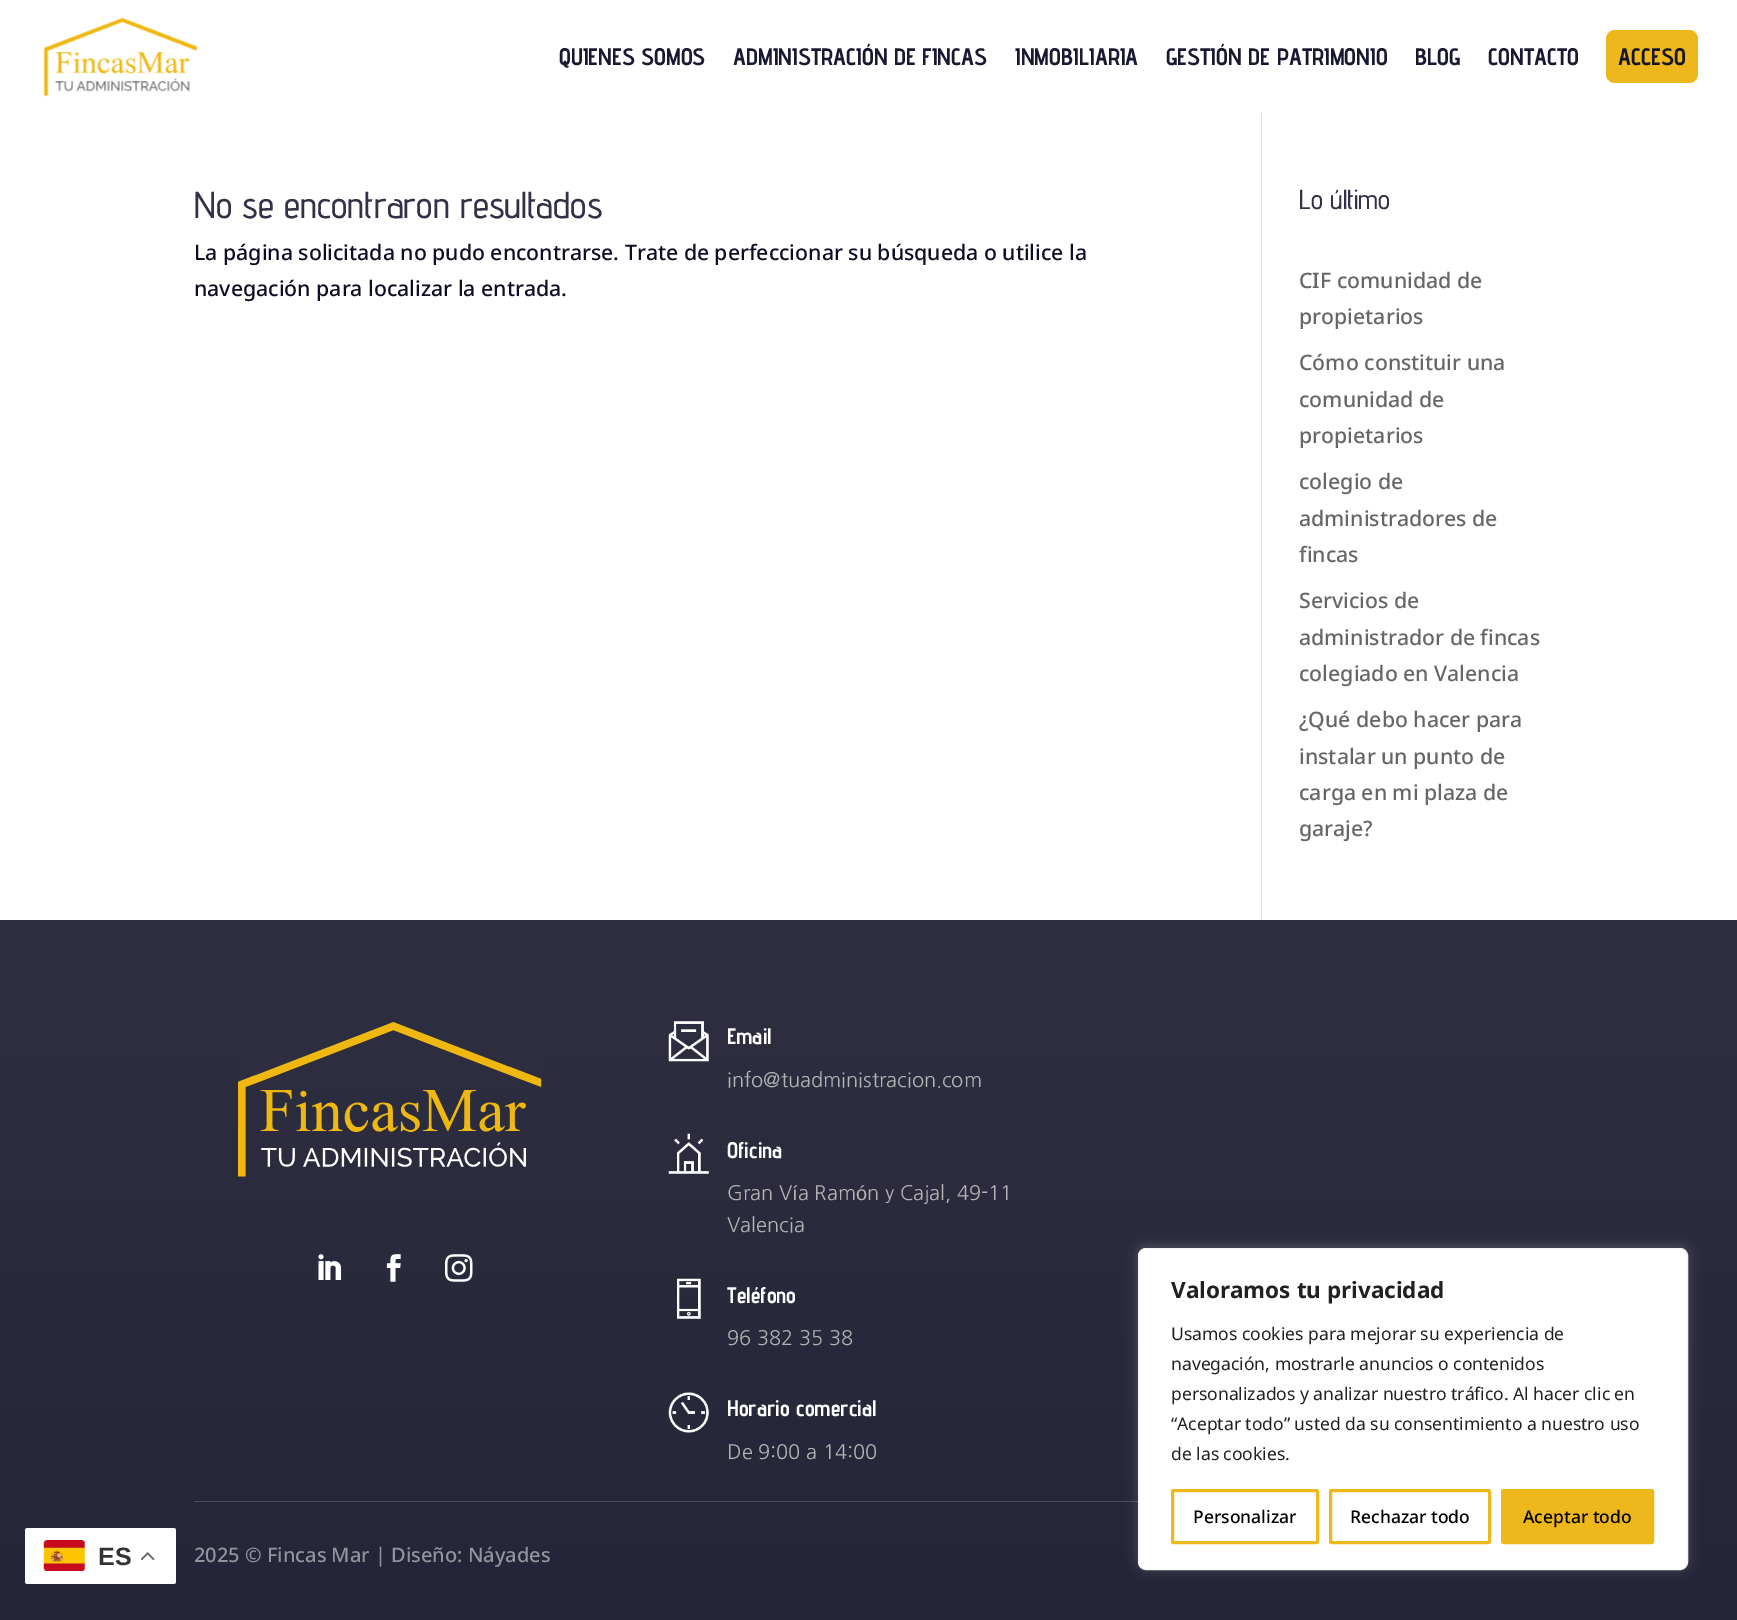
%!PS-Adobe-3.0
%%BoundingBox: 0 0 1737 1620
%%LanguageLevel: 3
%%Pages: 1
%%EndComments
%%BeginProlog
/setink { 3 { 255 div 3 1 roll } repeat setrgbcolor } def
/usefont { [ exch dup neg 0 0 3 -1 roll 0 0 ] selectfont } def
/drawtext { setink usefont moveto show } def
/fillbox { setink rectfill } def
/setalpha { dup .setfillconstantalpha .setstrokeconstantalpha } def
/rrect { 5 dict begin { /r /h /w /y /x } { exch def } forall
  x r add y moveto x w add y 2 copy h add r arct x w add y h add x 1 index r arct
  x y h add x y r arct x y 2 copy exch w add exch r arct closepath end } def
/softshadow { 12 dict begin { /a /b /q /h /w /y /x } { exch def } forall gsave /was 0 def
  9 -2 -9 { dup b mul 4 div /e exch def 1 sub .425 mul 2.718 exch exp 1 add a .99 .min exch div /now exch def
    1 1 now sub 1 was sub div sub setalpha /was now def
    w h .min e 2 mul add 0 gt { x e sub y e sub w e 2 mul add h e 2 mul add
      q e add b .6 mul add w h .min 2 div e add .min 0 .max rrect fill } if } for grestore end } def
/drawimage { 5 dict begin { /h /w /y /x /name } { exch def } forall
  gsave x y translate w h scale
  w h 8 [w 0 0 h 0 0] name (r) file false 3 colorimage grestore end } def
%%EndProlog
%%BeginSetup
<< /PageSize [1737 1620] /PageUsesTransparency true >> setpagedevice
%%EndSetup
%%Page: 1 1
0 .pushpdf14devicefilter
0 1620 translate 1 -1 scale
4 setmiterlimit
0 0 1737 1620 255 255 255 fillbox
(assets/img1.rgb) 43 17 155 80 drawimage
(QUIENES SOMOS) 559 65 /AdventPro-Bold 23.75 25 25 49 drawtext
(ADMINISTRACIÓN DE FINCAS) 733 65 /AdventPro-Bold 23.75 25 25 49 drawtext
(INMOBILIARIA) 1015 65 /AdventPro-Bold 23.75 25 25 49 drawtext
(GESTIÓN DE PATRIMONIO) 1166 65 /AdventPro-Bold 23.75 25 25 49 drawtext
(BLOG) 1415 65 /AdventPro-Bold 23.75 25 25 49 drawtext
(CONTACTO) 1488 65 /AdventPro-Bold 23.75 25 25 49 drawtext
238 184 29 setink
1606 30 92 53 9 rrect fill
(ACCESO) 1618 65 /AdventPro-Bold 23.75 24 22 38 drawtext
1261 113 1 807 226 226 226 fillbox
(No se encontraron resultados) 194 218 /AdventPro-Medium 37.5 49 49 71 drawtext
(La página solicitada no pudo encontrarse. Trate de perfeccionar su búsqueda o utilice la) 194 260 /NotoSans-Medium 21.25 13 13 38 drawtext
(navegación para localizar la entrada.) 194 296 /NotoSans-Medium 21.25 13 13 38 drawtext
(Lo último) 1299 209 /AdventPro-Medium 27.5 49 49 71 drawtext
(CIF comunidad de) 1299 288 /NotoSans-Medium 21.25 102 102 102 drawtext
(propietarios) 1299 324 /NotoSans-Medium 21.25 102 102 102 drawtext
(Cómo constituir una) 1299 370 /NotoSans-Medium 21.25 102 102 102 drawtext
(comunidad de) 1299 407 /NotoSans-Medium 21.25 102 102 102 drawtext
(propietarios) 1299 443 /NotoSans-Medium 21.25 102 102 102 drawtext
(colegio de) 1299 489 /NotoSans-Medium 21.25 102 102 102 drawtext
(administradores de) 1299 526 /NotoSans-Medium 21.25 102 102 102 drawtext
(fincas) 1299 562 /NotoSans-Medium 21.25 102 102 102 drawtext
(Servicios de) 1299 608 /NotoSans-Medium 21.25 102 102 102 drawtext
(administrador de fincas) 1299 645 /NotoSans-Medium 21.25 102 102 102 drawtext
(colegiado en Valencia) 1299 681 /NotoSans-Medium 21.25 102 102 102 drawtext
(¿Qué debo hacer para) 1299 727 /NotoSans-Medium 21.25 102 102 102 drawtext
(instalar un punto de) 1299 764 /NotoSans-Medium 21.25 102 102 102 drawtext
(carga en mi plaza de) 1299 800 /NotoSans-Medium 21.25 102 102 102 drawtext
(garaje?) 1299 836 /NotoSans-Medium 21.25 102 102 102 drawtext
gsave 0 920 moveto 1737 920 lineto 1737 1620 lineto 0 1620 lineto closepath clip newpath
<< /ShadingType 2 /ColorSpace /DeviceRGB /Coords [869 920 869 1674] /Extend [true true] /Function << /FunctionType 2 /Domain [0 1] /C0 [0.184 0.184 0.255] /C1 [0.141 0.141 0.22] /N 1 >> >> shfill grestore
(assets/img2.rgb) 238 1022 304 155 drawimage
(assets/img3.rgb) 318 1254 24 26 drawimage
(assets/img4.rgb) 386 1254 15 28 drawimage
(assets/img5.rgb) 445 1254 28 28 drawimage
(assets/img6.rgb) 668 1021 41 41 drawimage
(Email) 727 1044 /AdventPro-Bold 22.5 255 255 255 drawtext
(info@tuadministracion.com) 727 1087 /NanumGothic-Regular 20 179 179 179 drawtext
(assets/img7.rgb) 668 1133 41 41 drawimage
(Oficina) 727 1158 /AdventPro-Bold 22.5 255 255 255 drawtext
(Gran V a Ram) 727 1200 /NanumGothic-Regular 20 179 179 179 drawtext
(n y Cajal, 49-11) 867 1200 /NanumGothic-Regular 20 179 179 179 drawtext
(í) 792 1200 /LiberationSans-Regular 20 179 179 179 drawtext
(ó) 856 1200 /LiberationSans-Regular 20 179 179 179 drawtext
(Valencia) 727 1232 /NanumGothic-Regular 20 179 179 179 drawtext
(assets/img8.rgb) 677 1278 24 41 drawimage
(Teléfono) 727 1303 /AdventPro-Bold 22.5 255 255 255 drawtext
(96 382 35 38) 727 1345 /NanumGothic-Regular 20 179 179 179 drawtext
(assets/img9.rgb) 668 1392 41 41 drawimage
(Horario comercial) 727 1416 /AdventPro-Bold 22.5 255 255 255 drawtext
(De 9:00 a 14:00) 727 1459 /NanumGothic-Regular 20 179 179 179 drawtext
194 1501 944 1 76 76 91 fillbox
(2025 © Fincas Mar | Diseño: Náyades) 194 1562 /NotoSans-Medium 20 147 147 156 drawtext
172 171 171 setink
1138 1246 550 323 8 6 0.3 softshadow
255 255 255 setink
1138.5 1248.5 549 321 7.5 rrect gsave fill grestore
244 244 244 setink
stroke
(Valoramos tu privacidad) 1171 1298 /NotoSans-Bold 22.5 33 33 33 drawtext
(Usamos cookies para mejorar su experiencia de) 1171 1340 /NotoSans-Regular 17.5 33 33 33 drawtext
(navegación, mostrarle anuncios o contenidos) 1171 1370 /NotoSans-Regular 17.5 33 33 33 drawtext
(personalizados y analizar nuestro tráfico. Al hacer clic en) 1171 1400 /NotoSans-Regular 17.5 33 33 33 drawtext
(“Aceptar todo” usted da su consentimiento a nuestro uso) 1171 1430 /NotoSans-Regular 17.5 33 33 33 drawtext
(de las cookies.) 1171 1460 /NotoSans-Regular 17.5 33 33 33 drawtext
238 184 29 setink
3 setlinewidth
1172.5 1490.5 145 52 1 rrect stroke
(Personalizar) 1193 1523 /NotoSans-Medium 17.5 0 0 0 drawtext
238 184 29 setink
1330.5 1490.5 159 52 1 rrect stroke
(Rechazar todo) 1350 1523 /NotoSans-Medium 17.5 0 0 0 drawtext
238 184 29 setink
1502.5 1490.5 150 52 1 rrect gsave fill grestore
stroke
(Aceptar todo) 1523 1523 /NotoSans-Medium 17.5 0 0 0 drawtext
255 255 255 setink
25 1528 151 56 2.5 rrect fill
(assets/img10.rgb) 43 1540 42 31 drawimage
(ES) 98 1565 /LiberationSans-Bold 25 51 51 51 drawtext
(assets/img11.rgb) 141 1552 14 9 drawimage
.poppdf14devicefilter showpage
%%EOF
